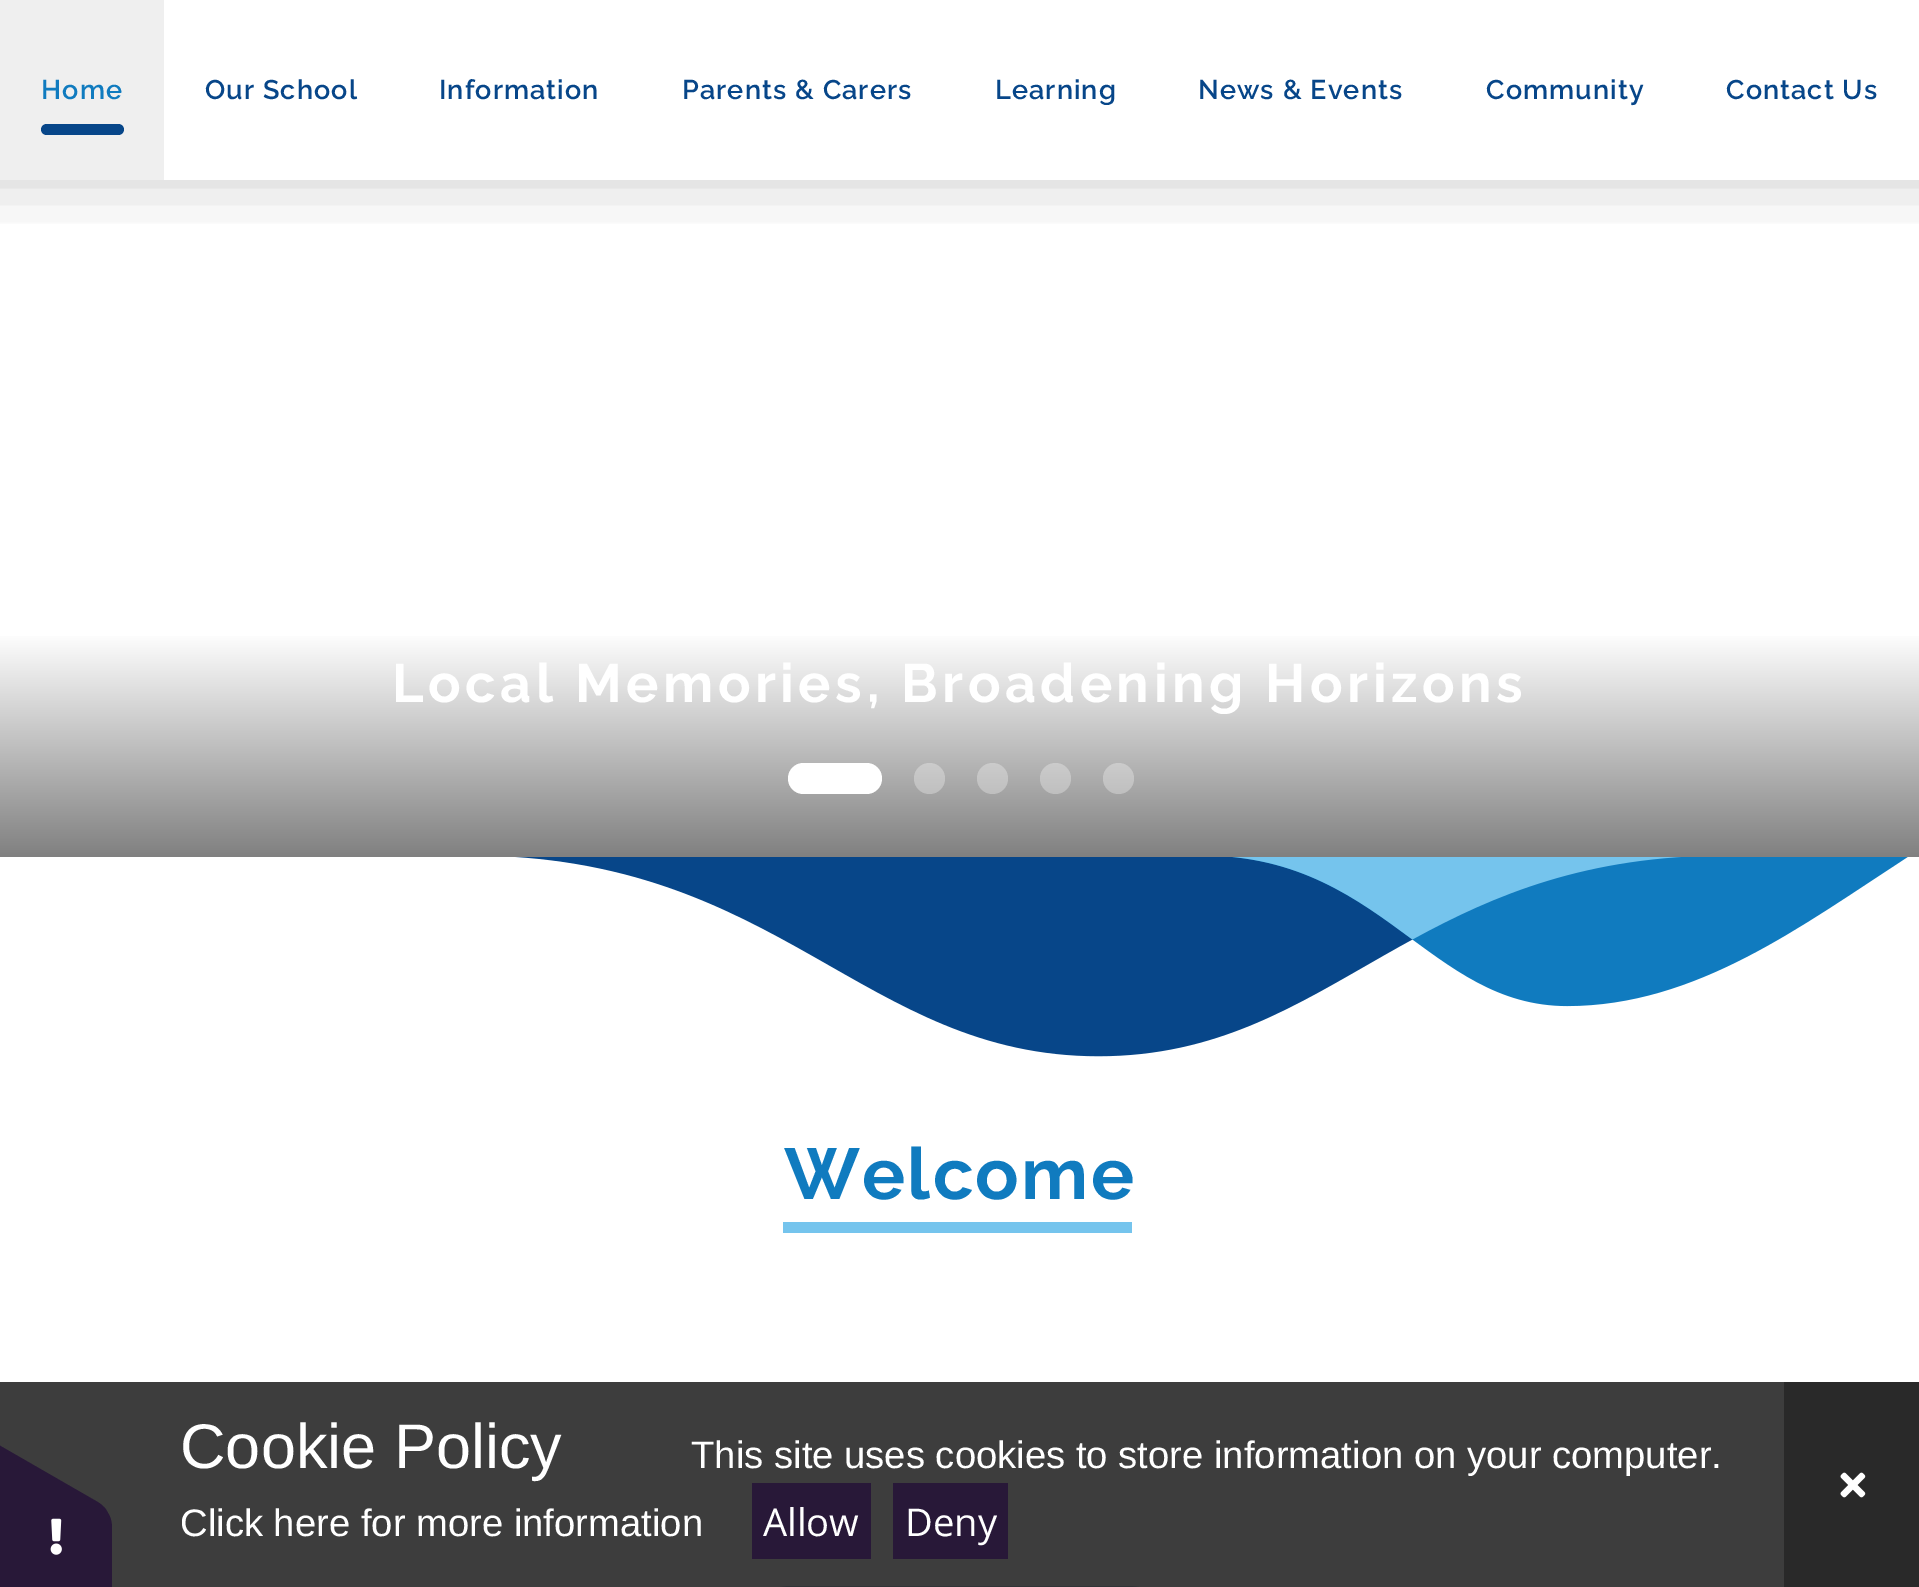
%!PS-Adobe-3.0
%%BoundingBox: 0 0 1919 1587
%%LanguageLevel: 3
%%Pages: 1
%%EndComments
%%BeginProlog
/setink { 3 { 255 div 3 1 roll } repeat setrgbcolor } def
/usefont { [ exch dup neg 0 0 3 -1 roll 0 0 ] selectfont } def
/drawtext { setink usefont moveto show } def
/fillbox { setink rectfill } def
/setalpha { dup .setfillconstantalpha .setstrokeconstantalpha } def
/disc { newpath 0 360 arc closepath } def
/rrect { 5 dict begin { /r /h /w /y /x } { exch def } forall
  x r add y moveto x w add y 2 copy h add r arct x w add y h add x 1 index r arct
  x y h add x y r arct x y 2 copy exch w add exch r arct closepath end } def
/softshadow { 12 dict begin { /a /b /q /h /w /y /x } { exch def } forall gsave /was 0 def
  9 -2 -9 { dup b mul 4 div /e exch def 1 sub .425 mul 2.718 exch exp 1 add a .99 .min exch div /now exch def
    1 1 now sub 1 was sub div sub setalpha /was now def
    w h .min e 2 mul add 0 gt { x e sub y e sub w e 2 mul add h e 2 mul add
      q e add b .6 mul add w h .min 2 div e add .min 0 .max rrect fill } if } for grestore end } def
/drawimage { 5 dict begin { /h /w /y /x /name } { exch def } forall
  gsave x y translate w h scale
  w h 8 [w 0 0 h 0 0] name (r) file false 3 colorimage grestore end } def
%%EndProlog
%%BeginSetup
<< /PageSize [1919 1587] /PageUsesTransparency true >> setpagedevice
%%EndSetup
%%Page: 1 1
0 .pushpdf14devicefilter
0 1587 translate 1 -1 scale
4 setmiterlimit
0 0 1919 1587 255 255 255 fillbox
0 1382 1784 205 61 61 61 fillbox
gsave
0 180 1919 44 rectclip
0 0 0 setink
-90 0 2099 180 68 34 0.2 softshadow
grestore
0 0 164 180 239 239 239 fillbox
/Raleway-SemiBold 27 usefont
16 123 191 setink
41 99 moveto 1.1 0 (Home) ashow
7 70 137 setink
41 124 83 11 5.5 rrect fill
205 99 moveto 1.1 0 (Our School) ashow
439 99 moveto 1.1 0 (Information) ashow
682 99 moveto 1.1 0 (Parents & Carers) ashow
995 99 moveto 1.1 0 (Learning) ashow
1198 99 moveto 1.1 0 (News & Events) ashow
1486 99 moveto 1.1 0 (Community) ashow
1726 99 moveto 1.1 0 (Contact Us) ashow
gsave 0 636 moveto 1919 636 lineto 1919 857 lineto 0 857 lineto closepath clip newpath
<< /ShadingType 2 /ColorSpace /DeviceRGB /Coords [960 632 960 857] /Extend [true true] /Function << /FunctionType 2 /Domain [0 1] /C0 [1 1 1] /C1 [0.502 0.502 0.502] /N 1 >> >> shfill grestore
/Raleway-Bold 54 usefont
255 255 255 setink
392 702 moveto 4.5 0 (Local Memories, Broadening Horizons) ashow
788 763 94 31 15.5 rrect fill
0.3 setalpha
929.5 778.5 15.5 disc fill
992.5 778.5 15.5 disc fill
1055.5 778.5 15.5 disc fill
1118.5 778.5 15.5 disc fill
1 setalpha
(assets/img1.rgb) 515 857 1393 200 drawimage
/Raleway-Bold 72 usefont
16 123 191 setink
784 1199 moveto 2.25 0 (Welcome) ashow
783 1222 349 11 117 196 237 fillbox
49 52 55 setink
729 1586 461 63 62 rrect fill
40 24 56 setink
112 1528 moveto 112 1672 lineto 112 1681 108 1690 103 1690 curveto -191 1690 lineto -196 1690 -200 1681 -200 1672 curveto -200 1528 lineto -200 1518 -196 1510 -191 1510 curveto 103 1510 lineto 108 1510 112 1518 112 1528 curveto closepath fill
-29 1429 moveto 96 1501 lineto 105 1506 110 1513 107 1517 curveto -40 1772 lineto -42 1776 -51 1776 -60 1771 curveto -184 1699 lineto -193 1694 -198 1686 -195 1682 curveto -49 1427 lineto -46 1423 -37 1424 -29 1429 curveto closepath fill
(assets/img2.rgb) 50 1518 12 37 drawimage
(Cookie Policy) 180 1468 /LiberationSans-Regular 63 255 255 255 drawtext
(This site uses cookies to store information on your computer.) 691 1468 /LiberationSans-Regular 38.25 255 255 255 drawtext
(Click here for more information) 180 1536 /LiberationSans-Regular 38.25 255 255 255 drawtext
752 1483 119 76 40 24 56 fillbox
(Allow) 763 1536 /OpenSans-Regular 38.25 255 255 255 drawtext
893 1483 115 76 40 24 56 fillbox
(Deny) 905 1536 /OpenSans-Regular 38.25 255 255 255 drawtext
1784 1382 135 205 41 41 41 fillbox
(assets/img3.rgb) 1840 1472 26 26 drawimage
.poppdf14devicefilter showpage
%%EOF
